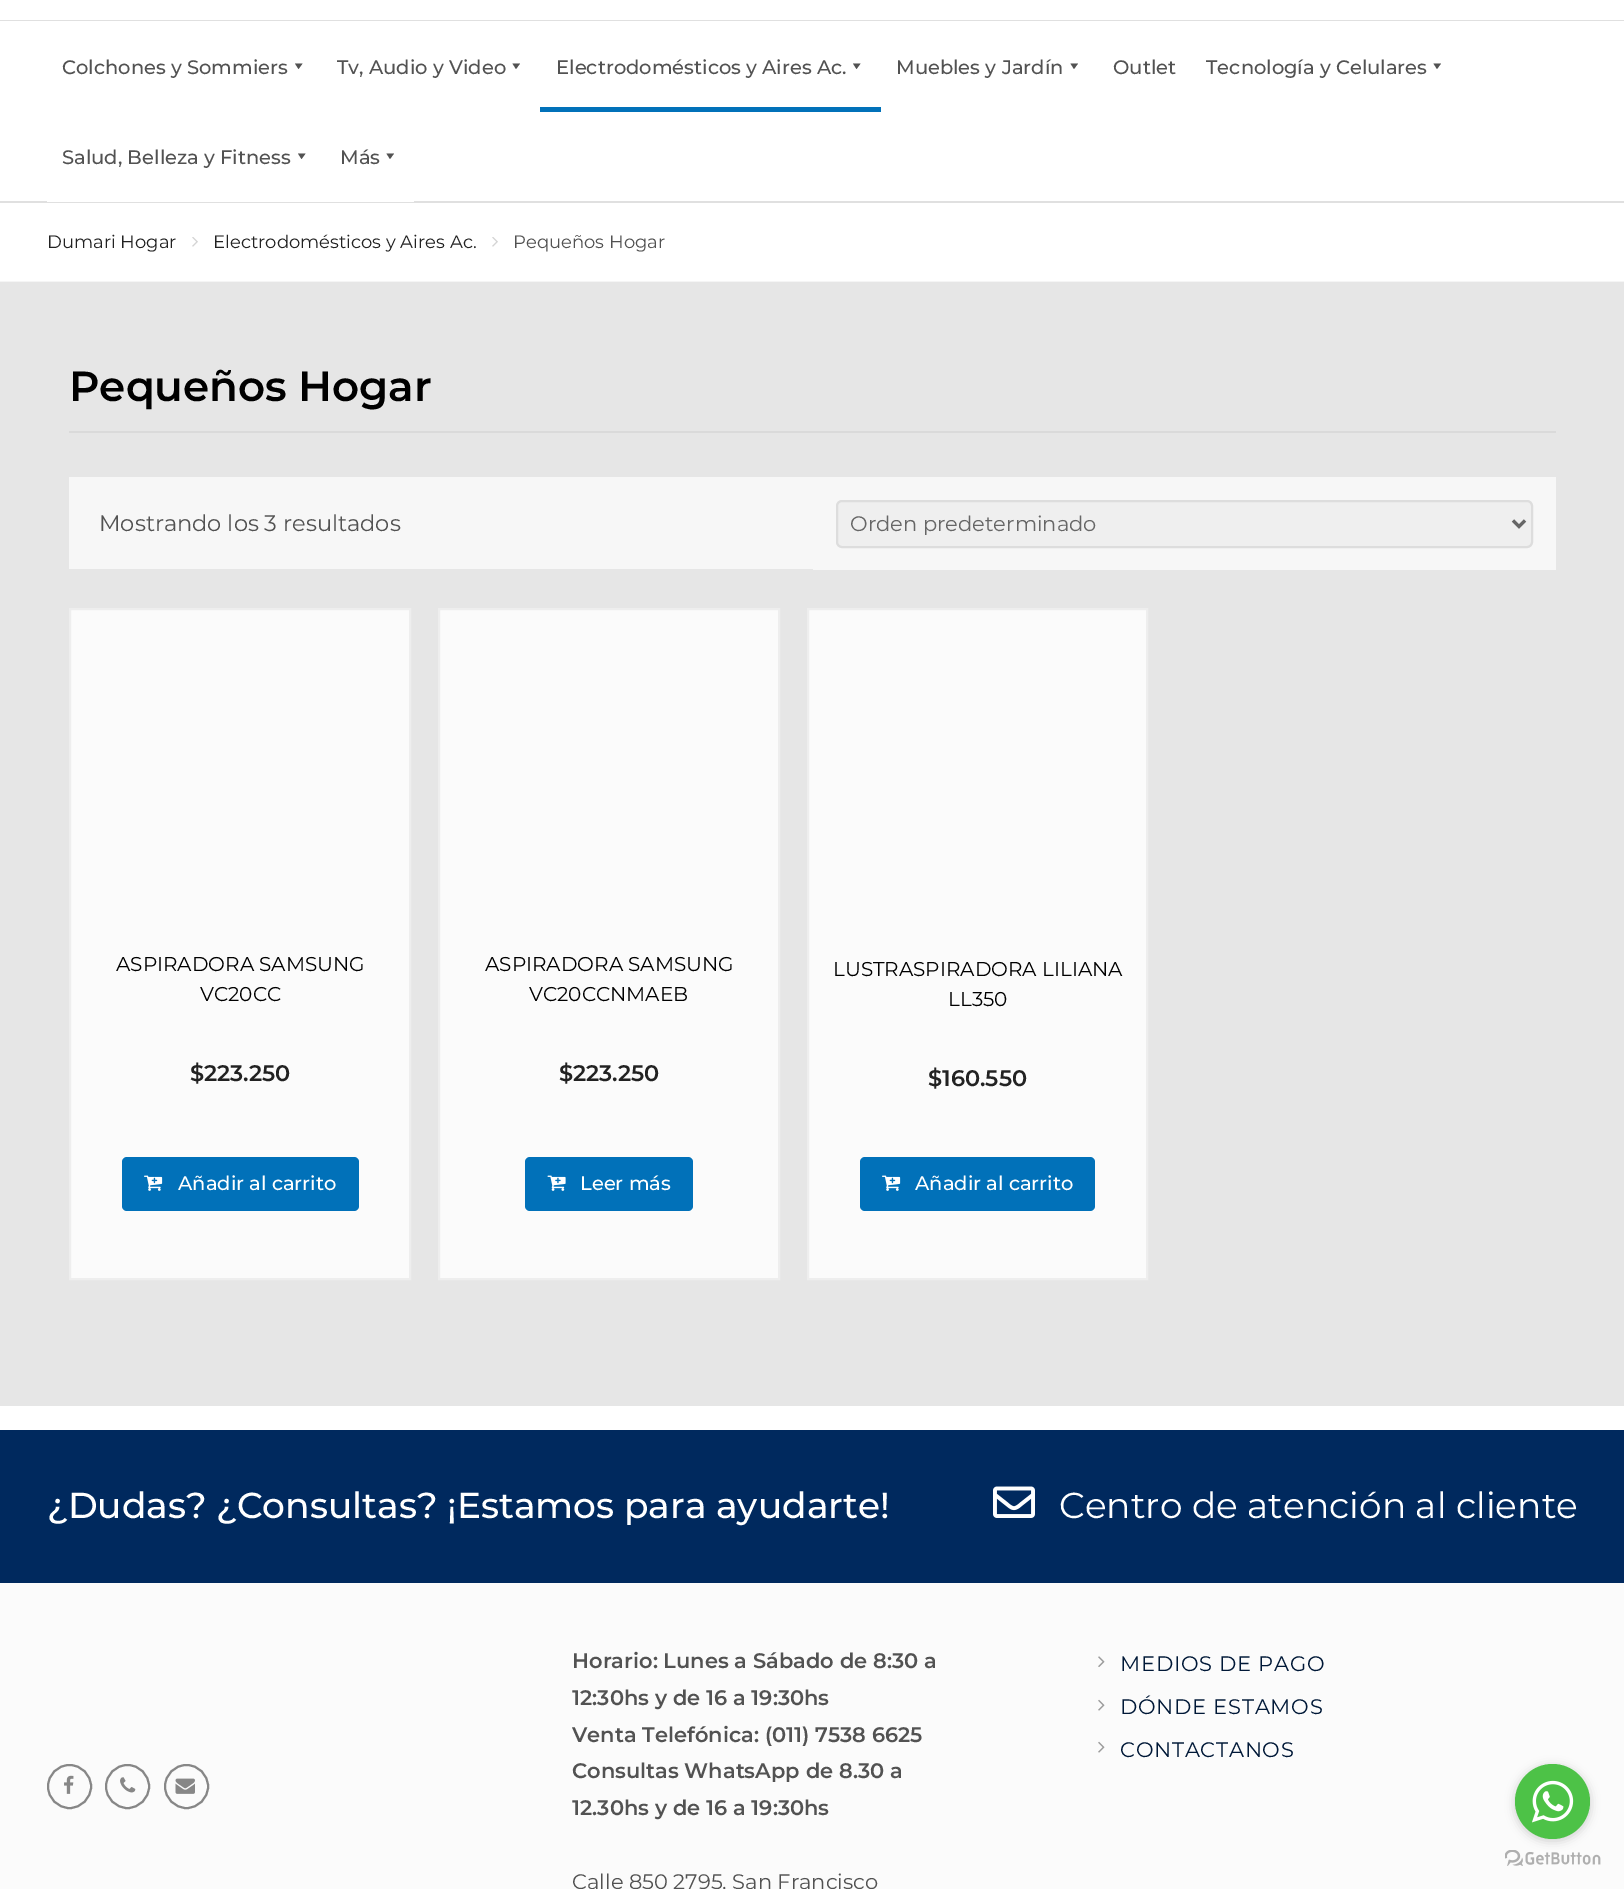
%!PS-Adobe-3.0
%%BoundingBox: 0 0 1624 1889
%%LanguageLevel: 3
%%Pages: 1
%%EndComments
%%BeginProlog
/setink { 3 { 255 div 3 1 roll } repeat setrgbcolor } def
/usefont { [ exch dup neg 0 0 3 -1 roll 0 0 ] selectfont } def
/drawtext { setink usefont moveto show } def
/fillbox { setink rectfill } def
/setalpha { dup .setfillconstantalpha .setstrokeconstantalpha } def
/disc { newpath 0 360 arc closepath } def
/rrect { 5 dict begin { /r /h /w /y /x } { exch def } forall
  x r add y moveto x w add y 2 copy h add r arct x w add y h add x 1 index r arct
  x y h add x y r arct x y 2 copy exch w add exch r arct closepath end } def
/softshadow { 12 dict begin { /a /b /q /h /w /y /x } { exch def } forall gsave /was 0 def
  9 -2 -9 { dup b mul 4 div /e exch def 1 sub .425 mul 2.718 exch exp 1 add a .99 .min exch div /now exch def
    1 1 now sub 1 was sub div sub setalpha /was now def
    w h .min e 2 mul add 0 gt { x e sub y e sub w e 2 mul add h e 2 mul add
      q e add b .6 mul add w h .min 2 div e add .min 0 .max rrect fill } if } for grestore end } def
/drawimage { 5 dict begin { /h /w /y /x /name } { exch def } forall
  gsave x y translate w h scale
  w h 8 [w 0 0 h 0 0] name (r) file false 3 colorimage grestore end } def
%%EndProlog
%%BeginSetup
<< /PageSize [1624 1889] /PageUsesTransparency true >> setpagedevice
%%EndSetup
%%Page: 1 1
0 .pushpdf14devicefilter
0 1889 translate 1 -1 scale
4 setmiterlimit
0 0 1624 1889 255 255 255 fillbox
0 20 1624 1 224 224 224 fillbox
0 201 1624 2 224 224 224 fillbox
(Colchones y Sommiers) 62 74 /Montserrat-Medium 19.5 82 82 82 drawtext
302.5 63.5 moveto 298.5 69 lineto 295 63.5 lineto closepath fill
(Tv, Audio y Video) 337 74 /Montserrat-Medium 19.5 82 82 82 drawtext
520 63.5 moveto 516 69 lineto 512.5 63.5 lineto closepath fill
540 107 341 5 1 113 185 fillbox
(Electrodomésticos y Aires Ac.) 556 74 /Montserrat-Medium 19.5 82 82 82 drawtext
860.5 63.5 moveto 856.5 69 lineto 853 63.5 lineto closepath fill
(Muebles y Jardín) 896 74 /Montserrat-Medium 19.5 82 82 82 drawtext
1078 63.5 moveto 1074 69 lineto 1070.5 63.5 lineto closepath fill
(Outlet) 1113 74 /Montserrat-Medium 19.5 82 82 82 drawtext
(Tecnología y Celulares) 1206 74 /Montserrat-Medium 19.5 82 82 82 drawtext
1441 63.5 moveto 1437 69 lineto 1433.5 63.5 lineto closepath fill
47 201 367 1 255 255 255 fillbox
(Salud, Belleza y Fitness) 62 164 /Montserrat-Medium 19.5 82 82 82 drawtext
305.5 153.5 moveto 301.5 159 lineto 298 153.5 lineto closepath fill
(Más) 340 164 /Montserrat-Medium 19.5 82 82 82 drawtext
394 153.5 moveto 390 159 lineto 386.5 153.5 lineto closepath fill
0 281 1624 1 245 245 245 fillbox
(Dumari Hogar) 47 248 /Montserrat-Regular 18 34 34 34 drawtext
(assets/img1.rgb) 192 237 6 10 drawimage
(Electrodomésticos y Aires Ac.) 213 248 /Montserrat-Regular 18 34 34 34 drawtext
(assets/img1.rgb) 492 237 6 10 drawimage
(Pequeños Hogar) 513 248 /Montserrat-Regular 18 82 82 82 drawtext
0 282 1624 1124 230 230 230 fillbox
69 431 1487 2 218 218 218 fillbox
(Pequeños Hogar) 69 401 /Montserrat-SemiBold 42 0 0 0 drawtext
69 477 744 92 247 247 247 fillbox
(Mostrando los 3 resultados) 99 531 /Montserrat-Regular 22.5 82 82 82 drawtext
813 477 743 93 247 247 247 fillbox
239 239 239 setink
837 501 695 46 5 rrect gsave fill grestore
221 221 221 setink
2 setlinewidth
stroke
102 102 102 setink
3 setlinewidth
1513 520.5 moveto 1519 526.5 lineto 1525 520.5 lineto stroke
(Orden predeterminado) 850 531 /Montserrat-Regular 21 102 102 102 drawtext
251 251 251 setink
70 609 moveto 410 609 lineto 410 1279 lineto 70 1279 lineto closepath gsave fill grestore
238 238 238 setink
2 setlinewidth
stroke
(ASPIRADORA SAMSUNG) 116 971 /Montserrat-Regular 20 0 0 0 drawtext
(VC20CC) 200 1001 /Montserrat-Regular 20 0 0 0 drawtext
($223.250) 190 1081 /Montserrat-SemiBold 22.5 34 34 34 drawtext
1 113 185 setink
122 1157 237 54 5 rrect fill
(assets/img2.rgb) 144 1175 19 16 drawimage
(Añadir al carrito) 178 1190 /Montserrat-Medium 19.5 255 255 255 drawtext
251 251 251 setink
439 609 moveto 779 609 lineto 779 1279 lineto 439 1279 lineto closepath gsave fill grestore
238 238 238 setink
stroke
(ASPIRADORA SAMSUNG) 485 971 /Montserrat-Regular 20 0 0 0 drawtext
(VC20CCNMAEB) 529 1001 /Montserrat-Regular 20 0 0 0 drawtext
($223.250) 559 1081 /Montserrat-SemiBold 22.5 34 34 34 drawtext
1 113 185 setink
525 1157 168 54 5 rrect fill
(assets/img3.rgb) 547 1175 19 16 drawimage
(Leer más) 580 1190 /Montserrat-Medium 19.5 255 255 255 drawtext
251 251 251 setink
808 609 moveto 1147 609 lineto 1147 1279 lineto 808 1279 lineto closepath gsave fill grestore
238 238 238 setink
stroke
(LUSTRASPIRADORA LILIANA) 833 976 /Montserrat-Regular 20 0 0 0 drawtext
(LL350) 948 1006 /Montserrat-Regular 20 0 0 0 drawtext
($160.550) 928 1086 /Montserrat-SemiBold 22.5 34 34 34 drawtext
1 113 185 setink
860 1157 235 54 5 rrect fill
(assets/img2.rgb) 882 1175 19 16 drawimage
(Añadir al carrito) 915 1190 /Montserrat-Medium 19.5 255 255 255 drawtext
0 1430 1624 153 0 41 94 fillbox
(¿Dudas? ¿Consultas? ¡Estamos para ayudarte!) 47 1518 /Montserrat-Medium 36 255 255 255 drawtext
(assets/img4.rgb) 993 1486 42 32 drawimage
(Centro de atención al cliente) 1059 1518 /Montserrat-Regular 36 255 255 255 drawtext
0 1583 1624 306 251 251 251 fillbox
(Horario: Lunes a Sábado de 8:30 a) 572 1668 /Montserrat-SemiBold 21 82 82 82 drawtext
(12:30hs y de 16 a 19:30hs) 572 1705 /Montserrat-SemiBold 21 82 82 82 drawtext
(Venta Telefónica: \(011\) 7538 6625) 572 1742 /Montserrat-SemiBold 21 82 82 82 drawtext
(Consultas WhatsApp de 8.30 a) 572 1778 /Montserrat-SemiBold 21 82 82 82 drawtext
(12.30hs y de 16 a 19:30hs) 572 1815 /Montserrat-SemiBold 21 82 82 82 drawtext
(Calle 850 2795, San Francisco) 572 1889 /Montserrat-Regular 21 82 82 82 drawtext
(assets/img5.rgb) 1098 1656 7 11 drawimage
0 24 55 setink
1120 1671 moveto 0.75 0 (MEDIOS DE PAGO) ashow
(assets/img6.rgb) 1098 1699 7 12 drawimage
1120 1714 moveto 0.75 0 (DÓNDE ESTAMOS) ashow
(assets/img6.rgb) 1098 1741 7 12 drawimage
1120 1757 moveto 0.75 0 (CONTACTANOS) ashow
135 135 135 setink
69.5 1786.5 21.5 disc stroke
(assets/img7.rgb) 64 1775 10 19 drawimage
127.5 1786.5 21.5 disc stroke
(assets/img8.rgb) 120 1777 16 16 drawimage
186.5 1786.5 21.5 disc stroke
(assets/img9.rgb) 175 1778 20 16 drawimage
(assets/img11.rgb) 1505 1850 96 16 drawimage
136 136 136 setink
1515 1766 75 75 37.5 5 0.4 softshadow
77 194 71 setink
1552.5 1801.5 37.5 disc fill
(assets/img10.rgb) 1532 1780 42 43 drawimage
.poppdf14devicefilter showpage
%%EOF
